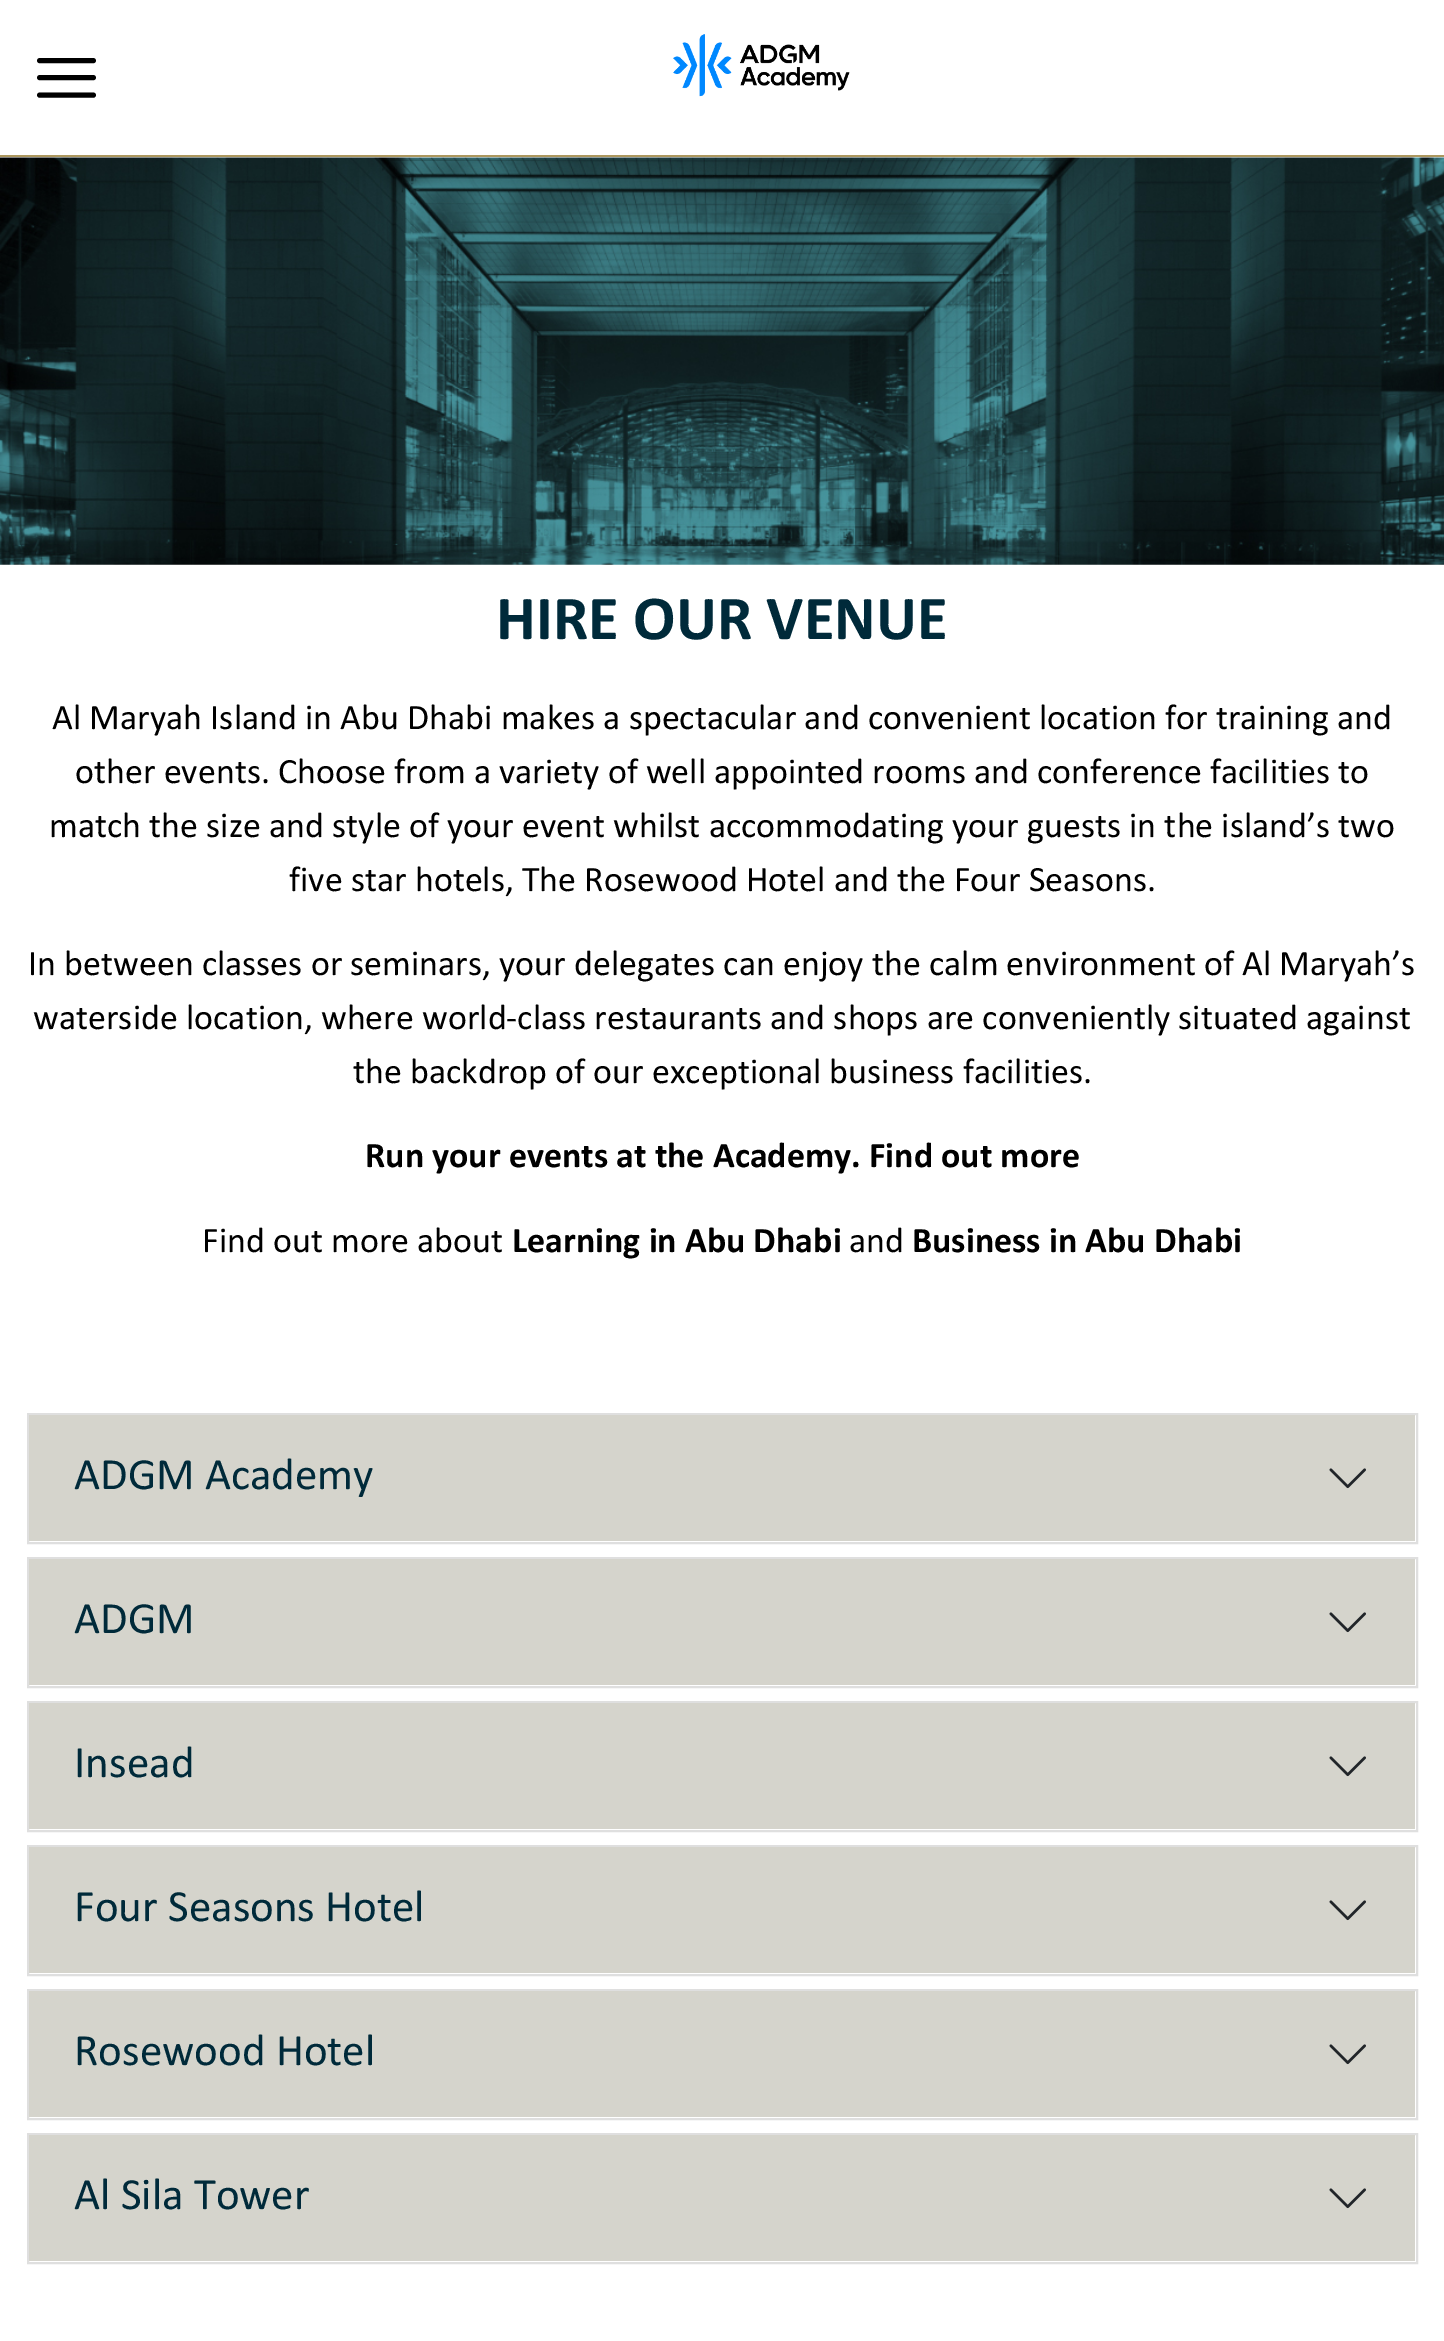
%!PS-Adobe-3.0
%%BoundingBox: 0 0 1444 2341
%%LanguageLevel: 3
%%Pages: 1
%%EndComments
%%BeginProlog
/setink { 3 { 255 div 3 1 roll } repeat setrgbcolor } def
/usefont { [ exch dup neg 0 0 3 -1 roll 0 0 ] selectfont } def
/drawtext { setink usefont moveto show } def
/fillbox { setink rectfill } def
/drawimage { 5 dict begin { /h /w /y /x /name } { exch def } forall
  gsave x y translate w h scale
  w h 8 [w 0 0 h 0 0] name (r) file false 3 colorimage grestore end } def
%%EndProlog
%%BeginSetup
<< /PageSize [1444 2341] >> setpagedevice
%%EndSetup
%%Page: 1 1
0 2341 translate 1 -1 scale
4 setmiterlimit
0 0 1444 2341 255 255 255 fillbox
0 155 1444 2 172 151 94 fillbox
0 0 0 setink
4.9 setlinewidth
1 setlinecap
1 setlinejoin
39.5 60.5 moveto 93.5 60.5 lineto 39.5 77.5 moveto 93.5 77.5 lineto 39.5 95 moveto 93.5 95 lineto stroke
(assets/img1.rgb) 673 34 177 63 drawimage
(assets/img2.rgb) 0 157 1444 408 drawimage
(HIRE OUR VENUE) 496 639 /Calibri-Bold 63 0 42 58 drawtext
(Al Maryah Island in Abu Dhabi makes a spectacular and convenient location for training and) 52 729 /Calibri-Regular 36 0 0 0 drawtext
(other events. Choose from a variety of well appointed rooms and conference facilities to) 75 783 /Calibri-Regular 36 0 0 0 drawtext
(match the size and style of your event whilst accommodating your guests in the island’s two) 49 837 /Calibri-Regular 36 0 0 0 drawtext
(five star hotels, The Rosewood Hotel and the Four Seasons.) 289 891 /Calibri-Regular 36 0 0 0 drawtext
(In between classes or seminars, your delegates can enjoy the calm environment of Al Maryah’s) 28 975 /Calibri-Regular 36 0 0 0 drawtext
(waterside location, where world-class restaurants and shops are conveniently situated against) 33 1029 /Calibri-Regular 36 0 0 0 drawtext
(the backdrop of our exceptional business facilities.) 353 1083 /Calibri-Regular 36 0 0 0 drawtext
(Run your events at the Academy. Find out more) 365 1167 /Calibri-Bold 36 0 0 0 drawtext
(Find out more about) 202 1252 /Calibri-Regular 36 0 0 0 drawtext
(Learning in Abu Dhabi) 512 1252 /Calibri-Bold 36 0 0 0 drawtext
(and) 849 1252 /Calibri-Regular 36 0 0 0 drawtext
(Business in Abu Dhabi) 912 1252 /Calibri-Bold 36 0 0 0 drawtext
223 223 223 setink
2 setlinewidth
0 setlinecap
0 setlinejoin
28 1414 1389 129 rectstroke
29 1415 1386 126 213 212 204 fillbox
(ADGM Academy) 74 1489 /Calibri-Regular 45 0 42 58 drawtext
(assets/img3.rgb) 1329 1468 37 21 drawimage
223 223 223 setink
28 1558 1389 129 rectstroke
29 1559 1386 126 213 212 204 fillbox
(ADGM) 74 1633 /Calibri-Regular 45 0 42 58 drawtext
(assets/img3.rgb) 1329 1612 37 21 drawimage
223 223 223 setink
28 1702 1389 129 rectstroke
29 1703 1386 126 213 212 204 fillbox
(Insead) 74 1777 /Calibri-Regular 45 0 42 58 drawtext
(assets/img3.rgb) 1329 1756 37 21 drawimage
223 223 223 setink
28 1846 1389 129 rectstroke
29 1847 1386 126 213 212 204 fillbox
(Four Seasons Hotel) 74 1921 /Calibri-Regular 45 0 42 58 drawtext
(assets/img3.rgb) 1329 1900 37 21 drawimage
223 223 223 setink
28 1990 1389 129 rectstroke
29 1991 1386 126 213 212 204 fillbox
(Rosewood Hotel) 74 2065 /Calibri-Regular 45 0 42 58 drawtext
(assets/img3.rgb) 1329 2044 37 21 drawimage
223 223 223 setink
28 2134 1389 129 rectstroke
29 2135 1386 126 213 212 204 fillbox
(Al Sila Tower) 74 2209 /Calibri-Regular 45 0 42 58 drawtext
(assets/img3.rgb) 1329 2188 37 21 drawimage
showpage
%%EOF
